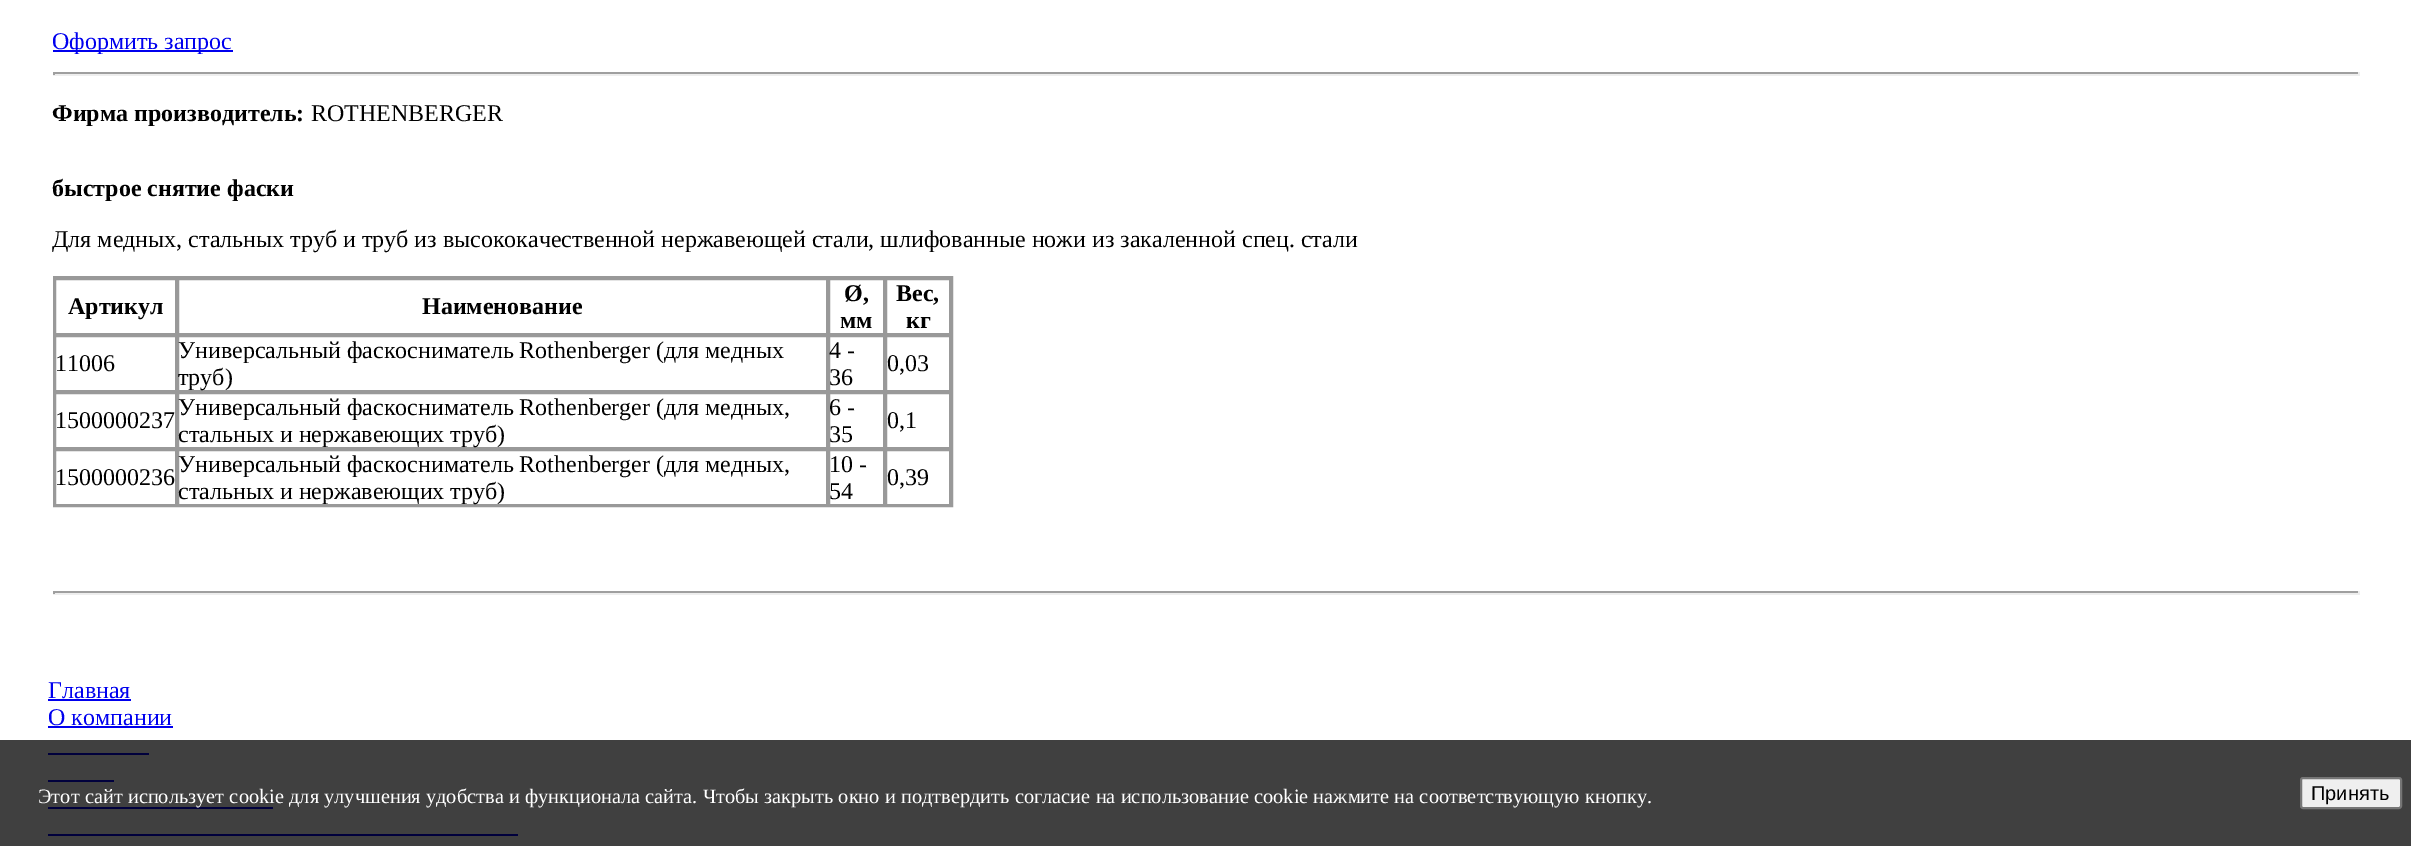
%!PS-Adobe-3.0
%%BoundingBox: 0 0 2411 846
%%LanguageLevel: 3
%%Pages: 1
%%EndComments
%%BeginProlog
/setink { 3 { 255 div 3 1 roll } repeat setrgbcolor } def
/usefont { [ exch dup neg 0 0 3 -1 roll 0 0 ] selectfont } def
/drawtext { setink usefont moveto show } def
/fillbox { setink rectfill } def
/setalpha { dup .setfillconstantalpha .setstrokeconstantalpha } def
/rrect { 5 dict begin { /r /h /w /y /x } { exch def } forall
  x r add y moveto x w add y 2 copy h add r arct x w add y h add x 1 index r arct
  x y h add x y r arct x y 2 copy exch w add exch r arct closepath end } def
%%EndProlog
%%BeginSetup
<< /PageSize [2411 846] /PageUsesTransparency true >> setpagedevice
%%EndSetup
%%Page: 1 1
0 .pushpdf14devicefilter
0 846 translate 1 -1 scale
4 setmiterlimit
0 0 2411 846 255 255 255 fillbox
53 50 180 2 0 0 238 fillbox
(Оформить запрос) 52 49 /LiberationSerif-Regular 24 0 0 238 drawtext
53 72 2307 2 159 159 159 fillbox
2358 72 2 3 238 238 238 fillbox
53 74 2307 2 238 238 238 fillbox
53 72 2 3 159 159 159 fillbox
(Фирма производитель:) 52 121 /LiberationSerif-Bold 24 0 0 0 drawtext
(ROTHENBERGER) 311 121 /LiberationSerif-Regular 24 0 0 0 drawtext
(быстрое снятие фаски) 52 196 /LiberationSerif-Bold 24 0 0 0 drawtext
(Для медных, стальных труб и труб из высококачественной нержавеющей стали, шлифованные ножи из закаленной спец. стали) 52 247 /LiberationSerif-Regular 24 0 0 0 drawtext
153 153 153 setink
2 setlinewidth
54 277 898 229 rectstroke
55 279 121 55 rectstroke
(Артикул) 68 314 /LiberationSerif-Bold 24 0 0 0 drawtext
153 153 153 setink
178 279 649 55 rectstroke
(Наименование) 422 314 /LiberationSerif-Bold 24 0 0 0 drawtext
153 153 153 setink
829 279 55 55 rectstroke
(Ø,) 844 301 /LiberationSerif-Bold 24 0 0 0 drawtext
(мм) 840 328 /LiberationSerif-Bold 24 0 0 0 drawtext
153 153 153 setink
886 279 64 55 rectstroke
(Вес,) 896 301 /LiberationSerif-Bold 24 0 0 0 drawtext
(кг) 906 328 /LiberationSerif-Bold 24 0 0 0 drawtext
153 153 153 setink
55 336 121 55 rectstroke
(11006) 55 371 /LiberationSerif-Regular 24 0 0 0 drawtext
153 153 153 setink
178 336 649 55 rectstroke
(Универсальный фаскосниматель Rothenberger \(для медных) 178 358 /LiberationSerif-Regular 24 0 0 0 drawtext
(труб\)) 178 385 /LiberationSerif-Regular 24 0 0 0 drawtext
153 153 153 setink
829 336 55 55 rectstroke
(4 -) 829 358 /LiberationSerif-Regular 24 0 0 0 drawtext
(36) 829 385 /LiberationSerif-Regular 24 0 0 0 drawtext
153 153 153 setink
886 336 64 55 rectstroke
(0,03) 887 371 /LiberationSerif-Regular 24 0 0 0 drawtext
153 153 153 setink
55 393 121 55 rectstroke
(1500000237) 55 428 /LiberationSerif-Regular 24 0 0 0 drawtext
153 153 153 setink
178 393 649 55 rectstroke
(Универсальный фаскосниматель Rothenberger \(для медных,) 178 415 /LiberationSerif-Regular 24 0 0 0 drawtext
(стальных и нержавеющих труб\)) 178 442 /LiberationSerif-Regular 24 0 0 0 drawtext
153 153 153 setink
829 393 55 55 rectstroke
(6 -) 829 415 /LiberationSerif-Regular 24 0 0 0 drawtext
(35) 829 442 /LiberationSerif-Regular 24 0 0 0 drawtext
153 153 153 setink
886 393 64 55 rectstroke
(0,1) 887 428 /LiberationSerif-Regular 24 0 0 0 drawtext
153 153 153 setink
55 450 121 55 rectstroke
(1500000236) 55 485 /LiberationSerif-Regular 24 0 0 0 drawtext
153 153 153 setink
178 450 649 55 rectstroke
(Универсальный фаскосниматель Rothenberger \(для медных,) 178 472 /LiberationSerif-Regular 24 0 0 0 drawtext
(стальных и нержавеющих труб\)) 178 499 /LiberationSerif-Regular 24 0 0 0 drawtext
153 153 153 setink
829 450 55 55 rectstroke
(10 -) 829 472 /LiberationSerif-Regular 24 0 0 0 drawtext
(54) 829 499 /LiberationSerif-Regular 24 0 0 0 drawtext
153 153 153 setink
886 450 64 55 rectstroke
(0,39) 887 485 /LiberationSerif-Regular 24 0 0 0 drawtext
53 591 2307 2 159 159 159 fillbox
2358 591 2 3 238 238 238 fillbox
53 593 2307 2 238 238 238 fillbox
53 591 2 3 159 159 159 fillbox
(Главная) 48 698 /LiberationSerif-Regular 24 0 0 238 drawtext
48 699 83 2 0 0 238 fillbox
(О компании) 48 725 /LiberationSerif-Regular 24 0 0 238 drawtext
48 726 125 2 0 0 238 fillbox
48 753 101 2 0 0 238 fillbox
48 780 66 2 0 0 238 fillbox
48 807 225 2 0 0 238 fillbox
48 834 470 2 0 0 238 fillbox
0.75 setalpha
0 740 2411 106 0 0 0 fillbox
1 setalpha
(Этот сайт использует cookie для улучшения удобства и функционала сайта. Чтобы закрыть окно и подтвердить согласие на использование cookie нажмите на соответствующую кнопку.) 38 803 /LiberationSerif-Regular 20.4 255 255 255 drawtext
239 239 239 setink
2301 778 100 30 2 rrect gsave fill grestore
118 118 118 setink
stroke
(Принять) 2311 800 /LiberationSans-Regular 20 0 0 0 drawtext
.poppdf14devicefilter showpage
%%EOF
